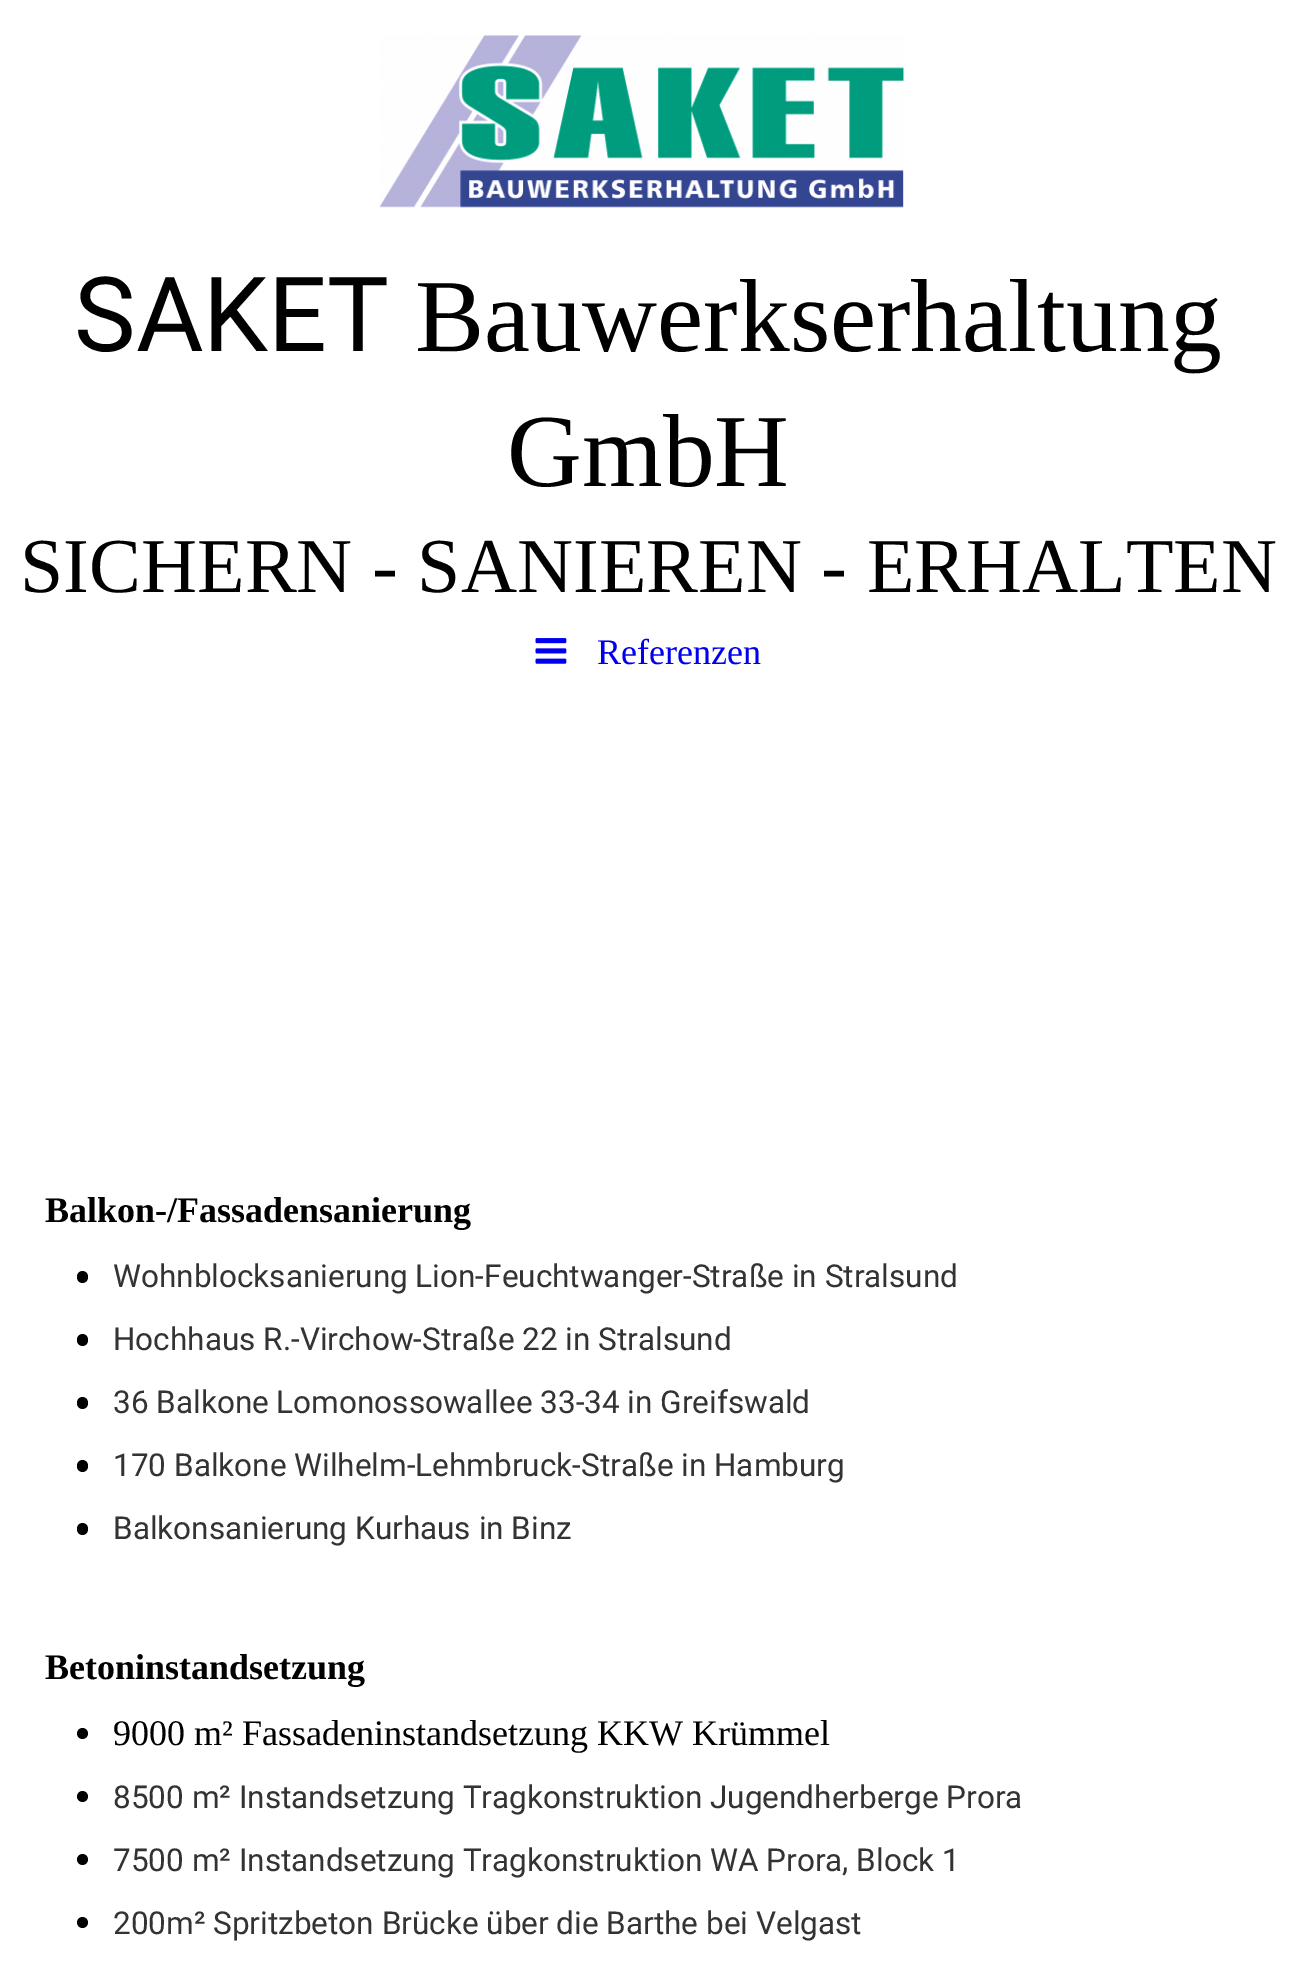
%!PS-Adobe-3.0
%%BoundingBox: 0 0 1296 1962
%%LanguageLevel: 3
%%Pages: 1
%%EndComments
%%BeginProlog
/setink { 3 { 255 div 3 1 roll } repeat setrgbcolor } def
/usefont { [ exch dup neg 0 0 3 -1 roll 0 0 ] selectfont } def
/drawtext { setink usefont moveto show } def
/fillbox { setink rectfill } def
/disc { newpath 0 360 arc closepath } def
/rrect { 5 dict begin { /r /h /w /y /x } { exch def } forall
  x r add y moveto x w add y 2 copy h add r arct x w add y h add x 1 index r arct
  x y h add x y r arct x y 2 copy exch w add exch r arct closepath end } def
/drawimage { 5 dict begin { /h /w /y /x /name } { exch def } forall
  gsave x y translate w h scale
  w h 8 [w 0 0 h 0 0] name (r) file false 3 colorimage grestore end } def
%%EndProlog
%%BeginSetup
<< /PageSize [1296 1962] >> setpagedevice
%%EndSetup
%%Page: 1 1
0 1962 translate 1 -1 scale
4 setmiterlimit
0 0 1296 1962 255 255 255 fillbox
(assets/img1.rgb) 379 35 525 173 drawimage
(SAKET) 74 351 /Roboto-Regular 103.75 0 0 0 drawtext
(Bauwerkserhaltung) 415 351 /LiberationSerif-Regular 103.75 0 0 0 drawtext
(GmbH) 507 486 /LiberationSerif-Regular 103.75 0 0 0 drawtext
(SICHERN - SANIEREN - ERHALTEN) 20 592 /LiberationSerif-Regular 77.75 0 0 0 drawtext
(assets/img2.rgb) 535 638 32 26 drawimage
(Referenzen) 597 664 /LiberationSerif-Regular 36 0 0 238 drawtext
(Balkon-/Fassadensanierung) 45 1222 /LiberationSerif-Bold 36 0 0 0 drawtext
77 1271 11 12 5.5 rrect fill
(Wohnblocksanierung Lion-Feuchtwanger-Straße in Stralsund) 113 1287 /Roboto-Regular 31.5 51 51 51 drawtext
0 0 0 setink
77 1334 11 12 5.5 rrect fill
(Hochhaus R.-Virchow-Straße 22 in Stralsund) 113 1350 /Roboto-Regular 31.5 51 51 51 drawtext
0 0 0 setink
77 1397 11 12 5.5 rrect fill
(36 Balkone Lomonossowallee 33-34 in Greifswald) 113 1413 /Roboto-Regular 31.5 51 51 51 drawtext
0 0 0 setink
77 1460 11 12 5.5 rrect fill
(170 Balkone Wilhelm-Lehmbruck-Straße in Hamburg) 113 1476 /Roboto-Regular 31.5 51 51 51 drawtext
0 0 0 setink
77 1523 11 12 5.5 rrect fill
(Balkonsanierung Kurhaus in Binz) 113 1539 /Roboto-Regular 31.5 51 51 51 drawtext
(Betoninstandsetzung) 45 1679 /LiberationSerif-Bold 36 0 0 0 drawtext
82.5 1733.5 5.5 disc fill
(9000 m² Fassadeninstandsetzung KKW Krümmel) 113 1745 /LiberationSerif-Regular 36 0 0 0 drawtext
82.5 1796.5 5.5 disc fill
(8500 m² Instandsetzung Tragkonstruktion Jugendherberge Prora) 113 1808 /Roboto-Regular 31.5 51 51 51 drawtext
0 0 0 setink
82.5 1859.5 5.5 disc fill
(7500 m² Instandsetzung Tragkonstruktion WA Prora, Block 1) 113 1871 /Roboto-Regular 31.5 51 51 51 drawtext
0 0 0 setink
82.5 1922.5 5.5 disc fill
(200m² Spritzbeton Brücke über die Barthe bei Velgast) 113 1934 /Roboto-Regular 31.5 51 51 51 drawtext
showpage
%%EOF
